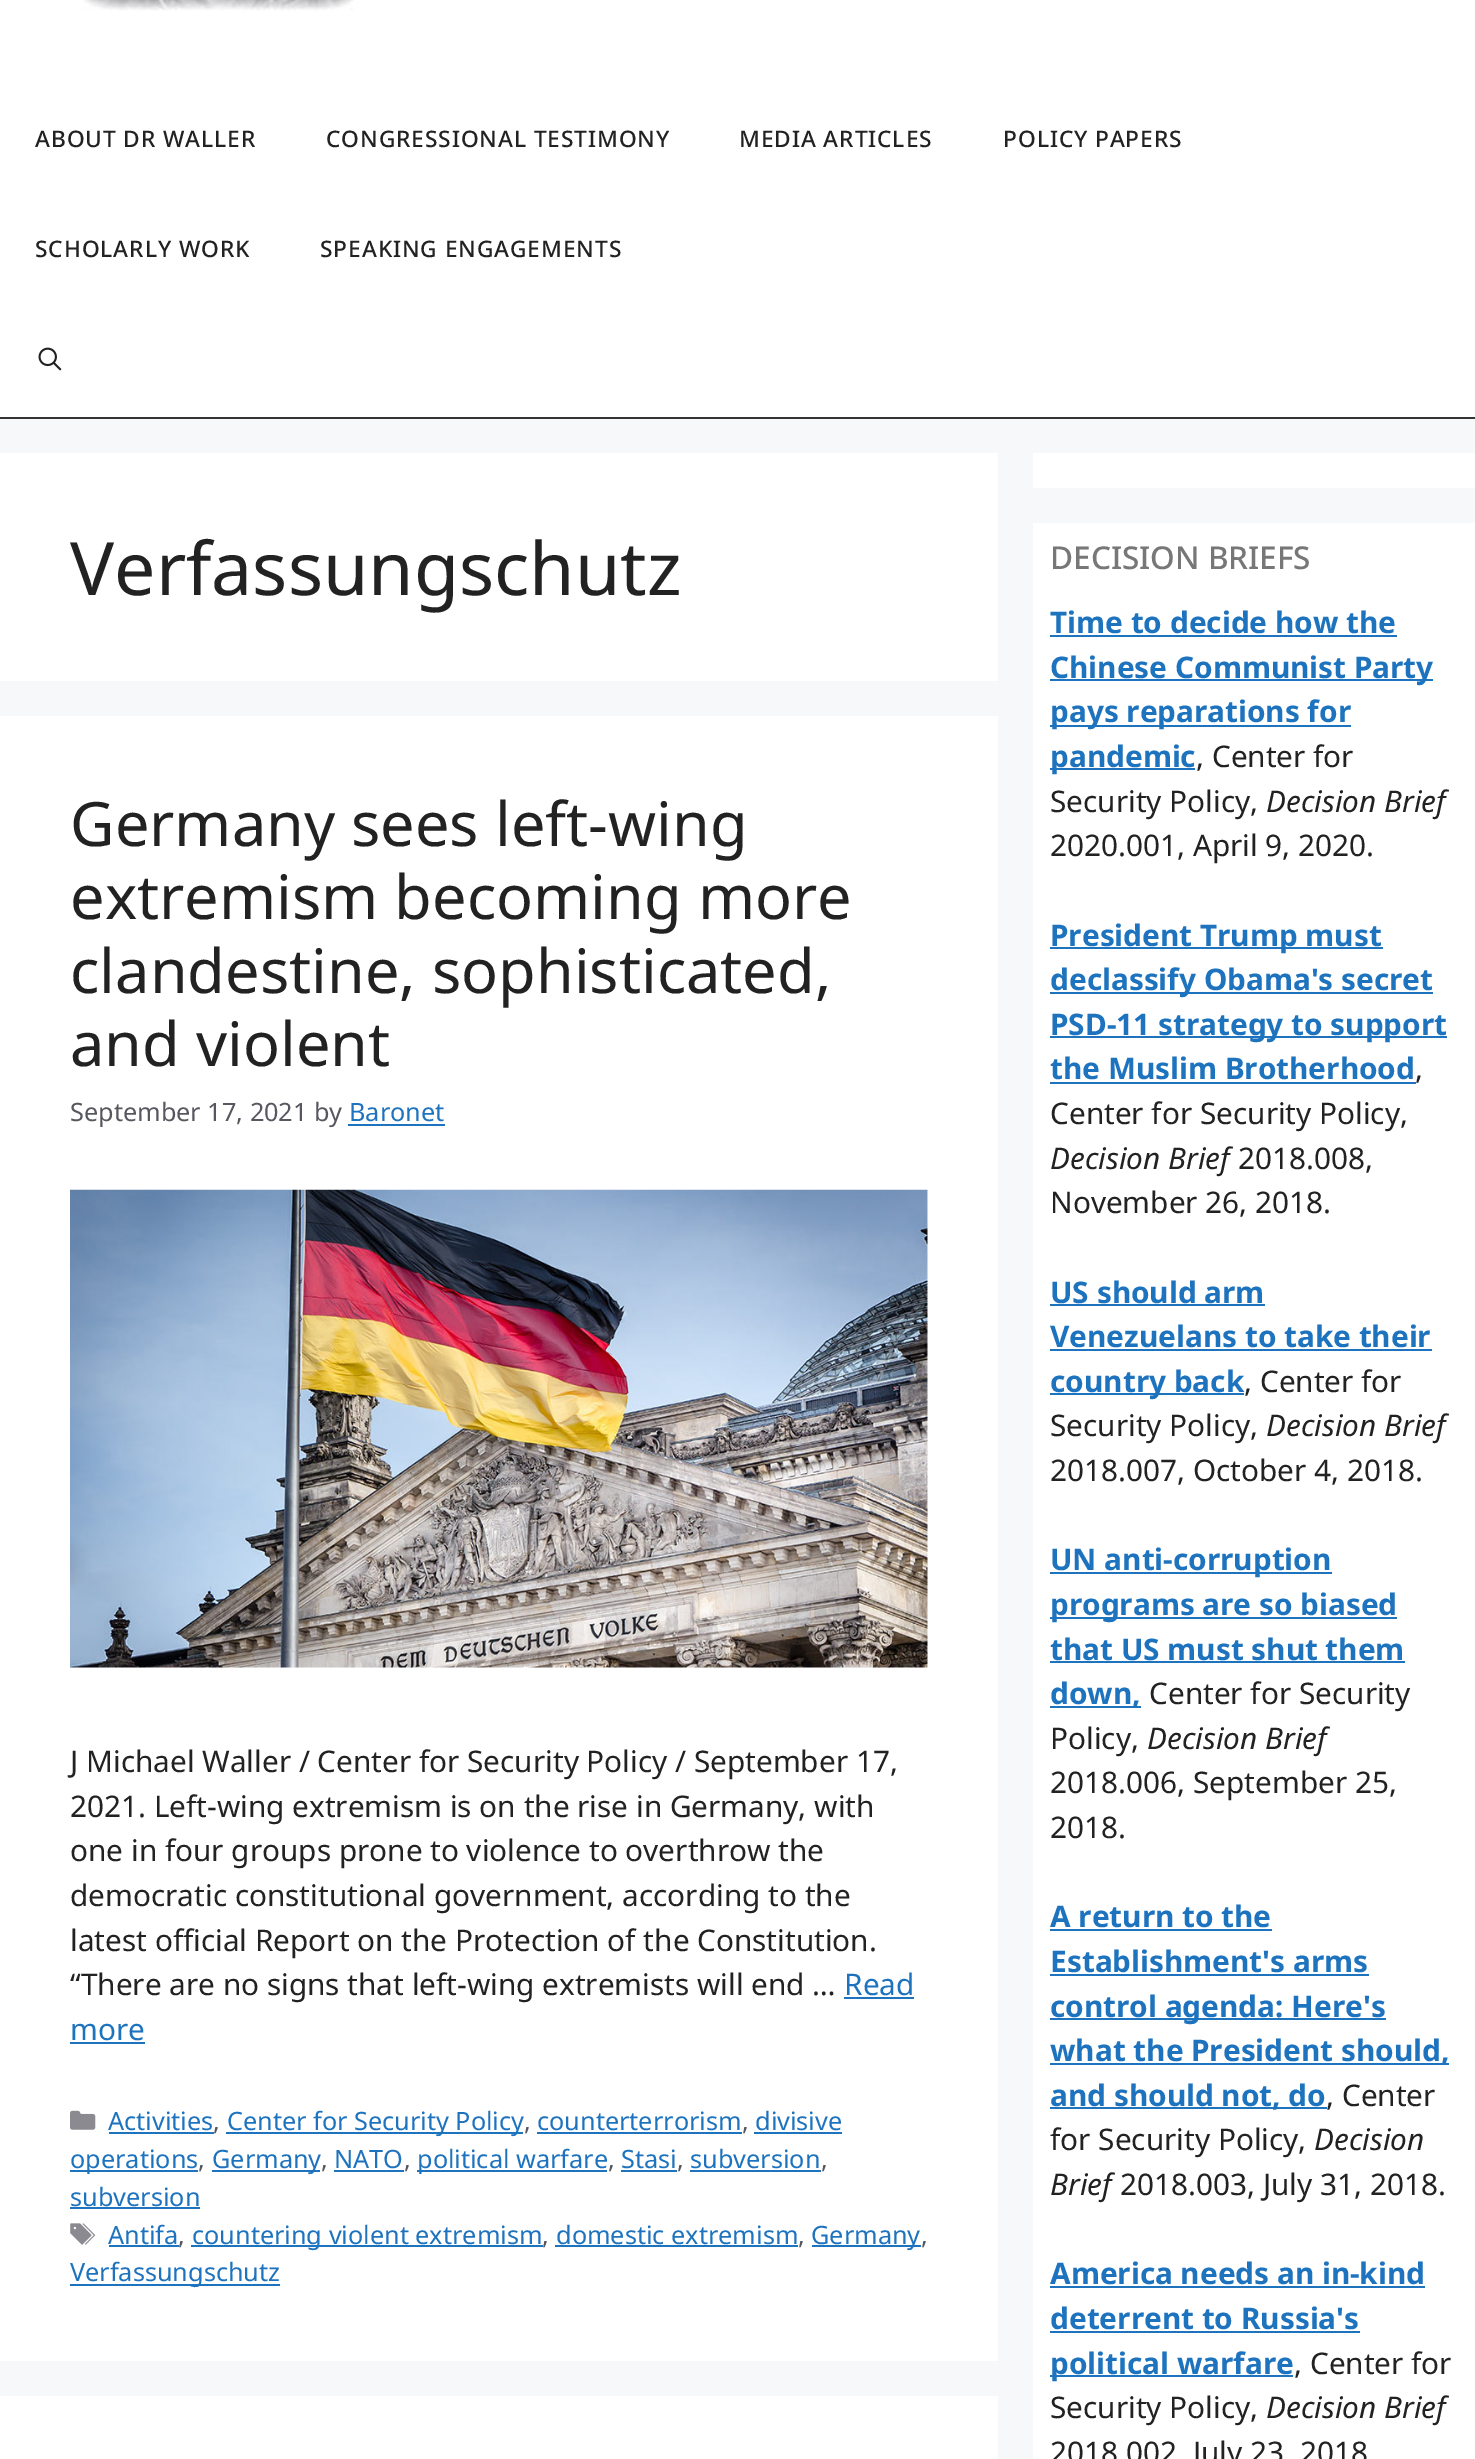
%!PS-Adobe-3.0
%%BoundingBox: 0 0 1475 2459
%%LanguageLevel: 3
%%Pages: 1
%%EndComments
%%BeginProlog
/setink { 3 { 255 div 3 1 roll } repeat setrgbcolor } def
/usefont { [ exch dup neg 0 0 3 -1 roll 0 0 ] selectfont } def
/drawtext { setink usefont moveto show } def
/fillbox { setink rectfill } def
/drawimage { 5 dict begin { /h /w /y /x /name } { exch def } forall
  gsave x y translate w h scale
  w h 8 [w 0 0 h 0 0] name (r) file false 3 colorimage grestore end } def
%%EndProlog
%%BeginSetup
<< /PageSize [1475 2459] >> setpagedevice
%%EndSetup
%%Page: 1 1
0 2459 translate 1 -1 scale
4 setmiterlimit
0 0 1475 2459 247 248 249 fillbox
0 0 1475 417 255 255 255 fillbox
(assets/img1.rgb) 83 0 271 11 drawimage
0 417 1475 2 51 51 51 fillbox
/NotoSans-Medium 22.75 usefont
34 34 34 setink
35 147 moveto 0.9 0 (ABOUT DR WALLER) ashow
326 147 moveto 0.9 0 (CONGRESSIONAL TESTIMONY) ashow
739 147 moveto 0.9 0 (MEDIA ARTICLES) ashow
1003 147 moveto 0.9 0 (POLICY PAPERS) ashow
35 257 moveto 0.9 0 (SCHOLARLY WORK) ashow
320 257 moveto 0.9 0 (SPEAKING ENGAGEMENTS) ashow
(assets/img2.rgb) 38 347 24 24 drawimage
0 453 998 228 255 255 255 fillbox
(Verfassungschutz) 70 595 /NotoSans-Regular 73.5 34 34 34 drawtext
0 716 998 1645 255 255 255 fillbox
(Germany sees left-wing) 70 846 /NotoSans-Regular 61.25 34 34 34 drawtext
(extremism becoming more) 70 919 /NotoSans-Regular 61.25 34 34 34 drawtext
(clandestine, sophisticated,) 70 993 /NotoSans-Regular 61.25 34 34 34 drawtext
(and violent) 70 1066 /NotoSans-Regular 61.25 34 34 34 drawtext
(September 17, 2021 by) 70 1121 /NotoSans-Regular 25.25 87 87 96 drawtext
(Baronet) 349 1121 /NotoSans-Regular 25.25 30 115 190 drawtext
348 1124 97 2 30 115 190 fillbox
(assets/img3.rgb) 70 1189 858 479 drawimage
(J Michael Waller / Center for Security Policy / September 17,) 70 1772 /NotoSans-Regular 29.75 34 34 34 drawtext
(2021. Left-wing extremism is on the rise in Germany, with) 70 1817 /NotoSans-Regular 29.75 34 34 34 drawtext
(one in four groups prone to violence to overthrow the) 70 1861 /NotoSans-Regular 29.75 34 34 34 drawtext
(democratic constitutional government, according to the) 70 1906 /NotoSans-Regular 29.75 34 34 34 drawtext
(latest official Report on the Protection of the Constitution.) 70 1951 /NotoSans-Regular 29.75 34 34 34 drawtext
(“There are no signs that left-wing extremists will end …) 70 1995 /NotoSans-Regular 29.75 34 34 34 drawtext
(Read) 844 1995 /NotoSans-Regular 29.75 30 115 190 drawtext
844 1997 70 2 30 115 190 fillbox
(more) 70 2040 /NotoSans-Regular 29.75 30 115 190 drawtext
70 2042 75 2 30 115 190 fillbox
(assets/img4.rgb) 70 2110 26 20 drawimage
(Activities) 108 2130 /NotoSans-Regular 25.25 30 115 190 drawtext
109 2132 105 2 30 115 190 fillbox
(,) 213 2130 /NotoSans-Regular 25.25 87 87 96 drawtext
226 2132 297 2 30 115 190 fillbox
(Center for Security Policy) 227 2130 /NotoSans-Regular 25.25 30 115 190 drawtext
(,) 524 2130 /NotoSans-Regular 25.25 87 87 96 drawtext
(counterterrorism) 537 2130 /NotoSans-Regular 25.25 30 115 190 drawtext
537 2132 205 2 30 115 190 fillbox
(,) 742 2130 /NotoSans-Regular 25.25 87 87 96 drawtext
(divisive) 755 2130 /NotoSans-Regular 25.25 30 115 190 drawtext
754 2132 88 2 30 115 190 fillbox
70 2170 128 2 30 115 190 fillbox
(operations) 70 2168 /NotoSans-Regular 25.25 30 115 190 drawtext
(,) 198 2168 /NotoSans-Regular 25.25 87 87 96 drawtext
212 2170 108 2 30 115 190 fillbox
(Germany) 212 2168 /NotoSans-Regular 25.25 30 115 190 drawtext
(,) 321 2168 /NotoSans-Regular 25.25 87 87 96 drawtext
(NATO) 334 2168 /NotoSans-Regular 25.25 30 115 190 drawtext
334 2170 70 2 30 115 190 fillbox
(,) 404 2168 /NotoSans-Regular 25.25 87 87 96 drawtext
417 2170 190 2 30 115 190 fillbox
(political warfare) 417 2168 /NotoSans-Regular 25.25 30 115 190 drawtext
(,) 608 2168 /NotoSans-Regular 25.25 87 87 96 drawtext
(Stasi) 621 2168 /NotoSans-Regular 25.25 30 115 190 drawtext
621 2170 56 2 30 115 190 fillbox
(,) 677 2168 /NotoSans-Regular 25.25 87 87 96 drawtext
(subversion) 690 2168 /NotoSans-Regular 25.25 30 115 190 drawtext
690 2170 131 2 30 115 190 fillbox
(,) 821 2168 /NotoSans-Regular 25.25 87 87 96 drawtext
(subversion) 70 2206 /NotoSans-Regular 25.25 30 115 190 drawtext
70 2207 130 2 30 115 190 fillbox
(assets/img5.rgb) 70 2223 25 22 drawimage
(Antifa) 108 2244 /NotoSans-Regular 25.25 30 115 190 drawtext
109 2245 70 2 30 115 190 fillbox
(,) 178 2244 /NotoSans-Regular 25.25 87 87 96 drawtext
191 2245 352 2 30 115 190 fillbox
(countering violent extremism) 192 2244 /NotoSans-Regular 25.25 30 115 190 drawtext
(,) 542 2244 /NotoSans-Regular 25.25 87 87 96 drawtext
(domestic extremism) 556 2244 /NotoSans-Regular 25.25 30 115 190 drawtext
555 2245 243 2 30 115 190 fillbox
(,) 798 2244 /NotoSans-Regular 25.25 87 87 96 drawtext
812 2245 109 2 30 115 190 fillbox
(Germany) 811 2244 /NotoSans-Regular 25.25 30 115 190 drawtext
(,) 921 2244 /NotoSans-Regular 25.25 87 87 96 drawtext
70 2284 210 2 30 115 190 fillbox
(Verfassungschutz) 70 2281 /NotoSans-Regular 25.25 30 115 190 drawtext
0 2396 998 63 255 255 255 fillbox
1033 453 442 35 255 255 255 fillbox
1033 523 442 1936 255 255 255 fillbox
(DECISION BRIEFS) 1050 569 /NotoSans-Medium 31.5 119 119 119 drawtext
(Time to decide how the) 1050 633 /NotoSans-Bold 29.75 30 115 190 drawtext
1050 635 347 2 30 115 190 fillbox
1050 679 383 2 30 115 190 fillbox
(Chinese Communist Party) 1050 678 /NotoSans-Bold 29.75 30 115 190 drawtext
1050 725 301 2 30 115 190 fillbox
(pays reparations for) 1050 722 /NotoSans-Bold 29.75 30 115 190 drawtext
1050 768 145 2 30 115 190 fillbox
(pandemic) 1050 767 /NotoSans-Bold 29.75 30 115 190 drawtext
(, Center for) 1196 767 /NotoSans-Regular 29.75 34 34 34 drawtext
(Security Policy,) 1050 812 /NotoSans-Regular 29.75 34 34 34 drawtext
(Decision Brief) 1266 812 /NotoSans-Italic 29.75 34 34 34 drawtext
(2020.001, April 9, 2020.) 1050 856 /NotoSans-Regular 29.75 34 34 34 drawtext
1050 947 333 2 30 115 190 fillbox
(President Trump must) 1050 946 /NotoSans-Bold 29.75 30 115 190 drawtext
1050 992 383 2 30 115 190 fillbox
(declassify Obama's secret) 1050 990 /NotoSans-Bold 29.75 30 115 190 drawtext
1050 1036 397 2 30 115 190 fillbox
(PSD-11 strategy to support) 1050 1035 /NotoSans-Bold 29.75 30 115 190 drawtext
(the Muslim Brotherhood) 1050 1079 /NotoSans-Bold 29.75 30 115 190 drawtext
1050 1082 366 2 30 115 190 fillbox
(,) 1415 1079 /NotoSans-Regular 29.75 34 34 34 drawtext
(Center for Security Policy,) 1050 1124 /NotoSans-Regular 29.75 34 34 34 drawtext
(Decision Brief) 1050 1169 /NotoSans-Italic 29.75 34 34 34 drawtext
(2018.008,) 1238 1169 /NotoSans-Regular 29.75 34 34 34 drawtext
(November 26, 2018.) 1050 1213 /NotoSans-Regular 29.75 34 34 34 drawtext
(US should arm) 1050 1303 /NotoSans-Bold 29.75 30 115 190 drawtext
1050 1304 215 2 30 115 190 fillbox
(Venezuelans to take their) 1050 1347 /NotoSans-Bold 29.75 30 115 190 drawtext
1050 1349 382 2 30 115 190 fillbox
1050 1393 194 2 30 115 190 fillbox
(country back) 1050 1392 /NotoSans-Bold 29.75 30 115 190 drawtext
(, Center for) 1244 1392 /NotoSans-Regular 29.75 34 34 34 drawtext
(Security Policy,) 1050 1436 /NotoSans-Regular 29.75 34 34 34 drawtext
(Decision Brief) 1266 1436 /NotoSans-Italic 29.75 34 34 34 drawtext
(2018.007, October 4, 2018.) 1050 1481 /NotoSans-Regular 29.75 34 34 34 drawtext
1050 1572 282 2 30 115 190 fillbox
(UN anti-corruption) 1050 1570 /NotoSans-Bold 29.75 30 115 190 drawtext
1050 1617 347 2 30 115 190 fillbox
(programs are so biased) 1050 1615 /NotoSans-Bold 29.75 30 115 190 drawtext
(that US must shut them) 1050 1660 /NotoSans-Bold 29.75 30 115 190 drawtext
1050 1661 355 2 30 115 190 fillbox
1050 1706 91 2 30 115 190 fillbox
(down,) 1050 1704 /NotoSans-Bold 29.75 30 115 190 drawtext
(Center for Security) 1149 1704 /NotoSans-Regular 29.75 34 34 34 drawtext
(Policy,) 1050 1749 /NotoSans-Regular 29.75 34 34 34 drawtext
(Decision Brief) 1147 1749 /NotoSans-Italic 29.75 34 34 34 drawtext
(2018.006, September 25,) 1050 1793 /NotoSans-Regular 29.75 34 34 34 drawtext
(2018.) 1050 1838 /NotoSans-Regular 29.75 34 34 34 drawtext
(A return to the) 1050 1927 /NotoSans-Bold 29.75 30 115 190 drawtext
1050 1929 222 2 30 115 190 fillbox
(Establishment's arms) 1050 1972 /NotoSans-Bold 29.75 30 115 190 drawtext
1050 1974 319 2 30 115 190 fillbox
1050 2018 336 2 30 115 190 fillbox
(control agenda: Here's) 1050 2017 /NotoSans-Bold 29.75 30 115 190 drawtext
1050 2063 399 2 30 115 190 fillbox
(what the President should,) 1050 2061 /NotoSans-Bold 29.75 30 115 190 drawtext
1050 2107 277 2 30 115 190 fillbox
(and should not, do) 1050 2106 /NotoSans-Bold 29.75 30 115 190 drawtext
(, Center) 1326 2106 /NotoSans-Regular 29.75 34 34 34 drawtext
(for Security Policy,) 1050 2150 /NotoSans-Regular 29.75 34 34 34 drawtext
(Decision) 1314 2150 /NotoSans-Italic 29.75 34 34 34 drawtext
(Brief) 1050 2195 /NotoSans-Italic 29.75 34 34 34 drawtext
(2018.003, July 31, 2018.) 1120 2195 /NotoSans-Regular 29.75 34 34 34 drawtext
(America needs an in-kind) 1050 2284 /NotoSans-Bold 29.75 30 115 190 drawtext
1050 2286 375 2 30 115 190 fillbox
(deterrent to Russia's) 1050 2329 /NotoSans-Bold 29.75 30 115 190 drawtext
1050 2331 310 2 30 115 190 fillbox
1050 2375 243 2 30 115 190 fillbox
(political warfare) 1050 2374 /NotoSans-Bold 29.75 30 115 190 drawtext
(, Center for) 1294 2374 /NotoSans-Regular 29.75 34 34 34 drawtext
(Security Policy,) 1050 2418 /NotoSans-Regular 29.75 34 34 34 drawtext
(Decision Brief) 1266 2418 /NotoSans-Italic 29.75 34 34 34 drawtext
(2018.002, July 23, 2018) 1050 2463 /NotoSans-Regular 29.75 34 34 34 drawtext
showpage
%%EOF
